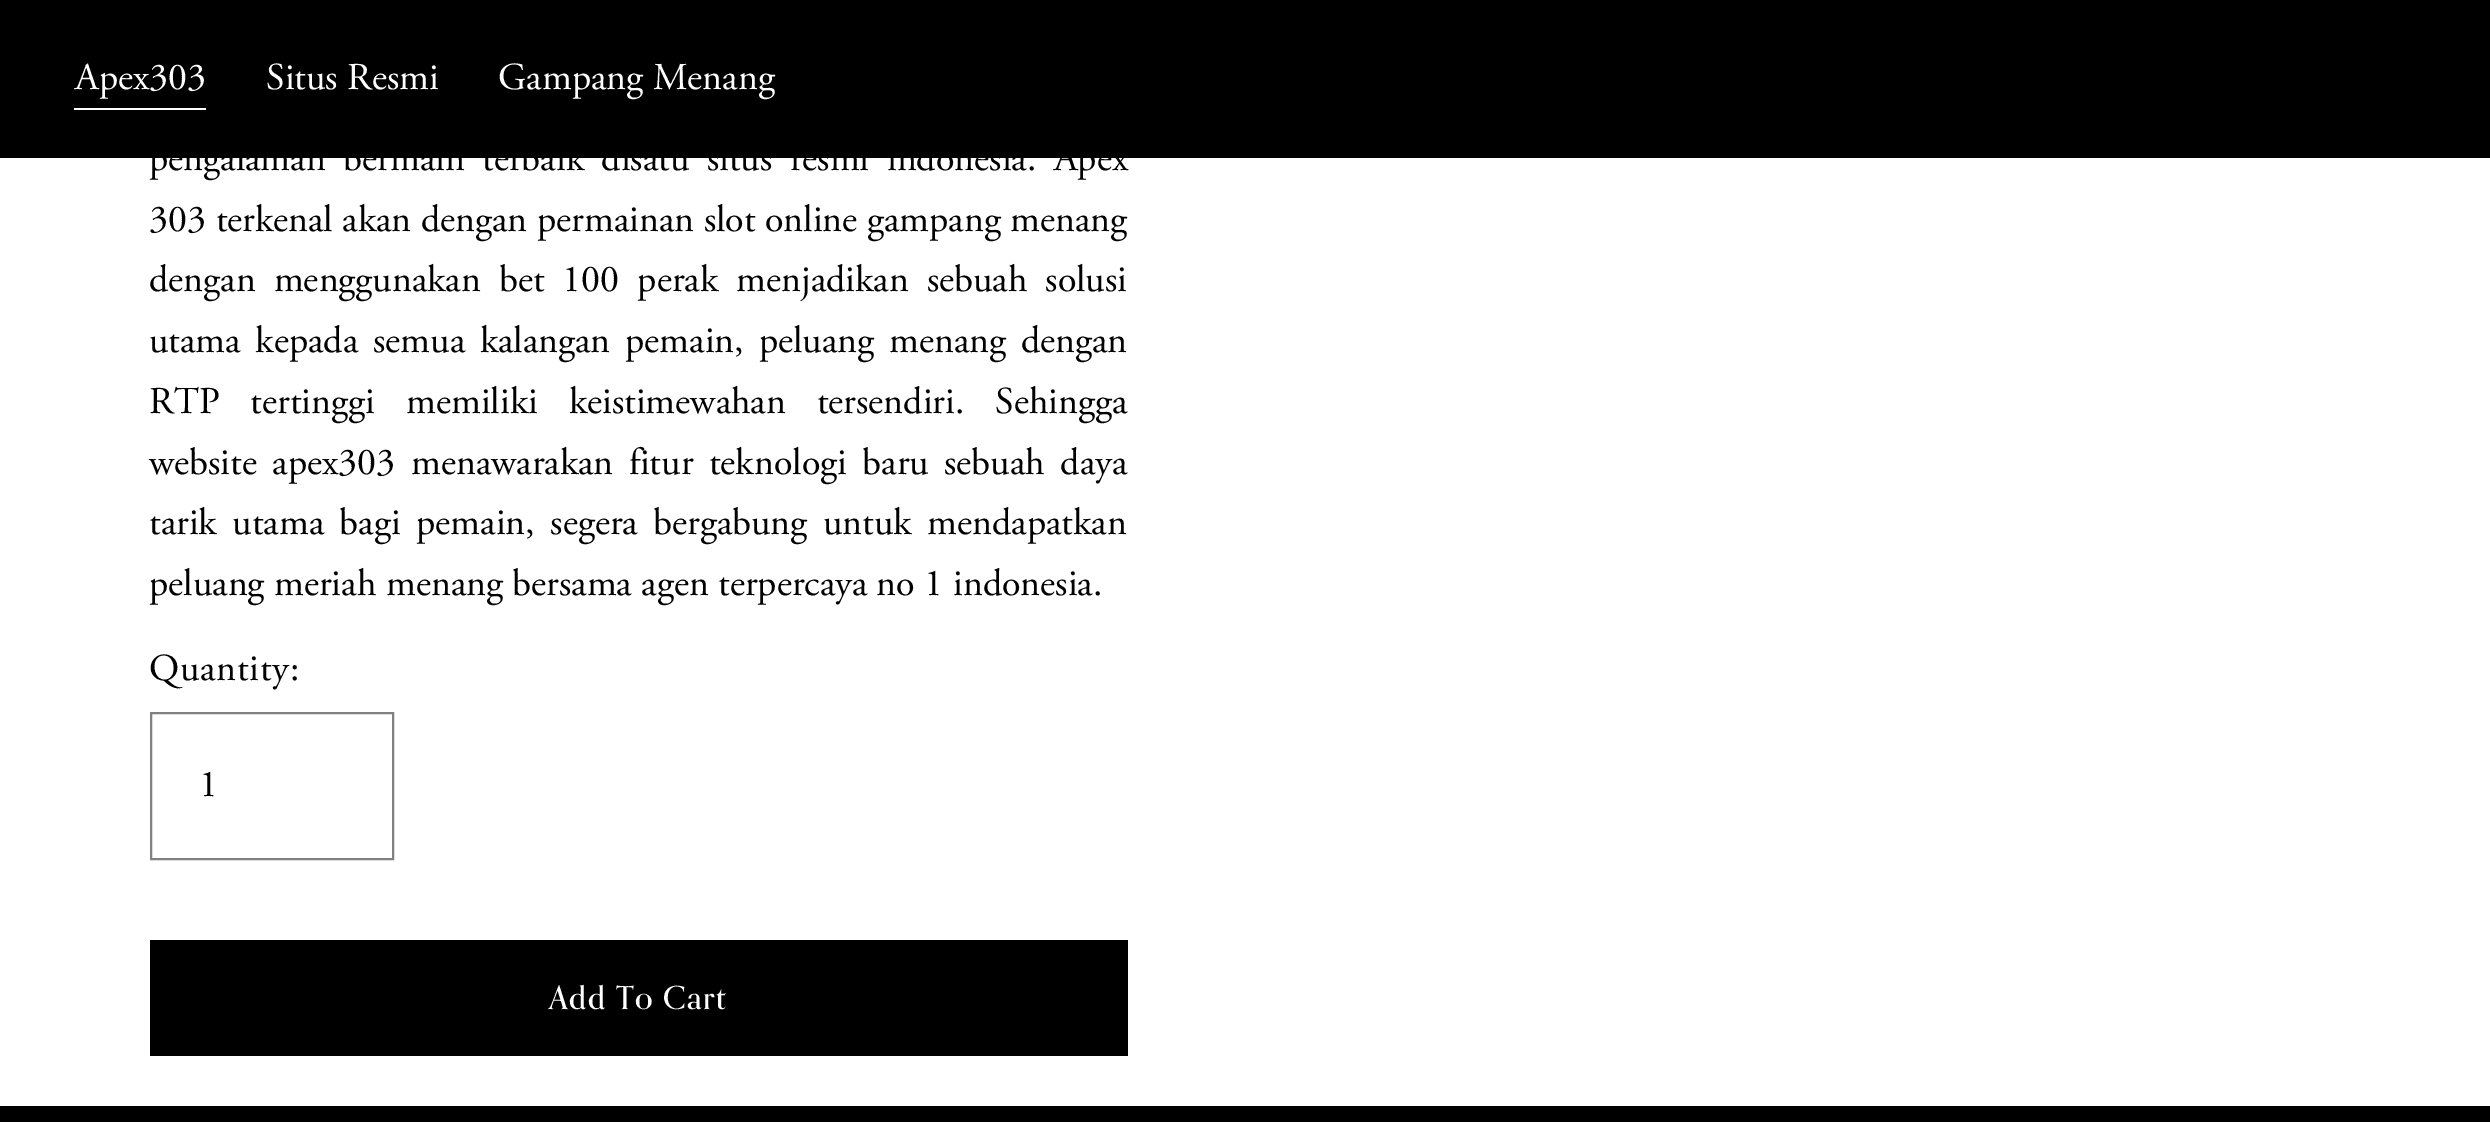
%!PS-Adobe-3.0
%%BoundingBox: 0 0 2490 1122
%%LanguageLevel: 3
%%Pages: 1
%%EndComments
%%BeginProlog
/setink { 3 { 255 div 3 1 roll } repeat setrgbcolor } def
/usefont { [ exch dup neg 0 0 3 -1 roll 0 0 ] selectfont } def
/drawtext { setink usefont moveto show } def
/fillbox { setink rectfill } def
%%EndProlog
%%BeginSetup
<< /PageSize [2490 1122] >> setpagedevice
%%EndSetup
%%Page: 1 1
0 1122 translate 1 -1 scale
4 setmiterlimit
0 0 2490 1122 255 255 255 fillbox
0 0 2490 158 0 0 0 fillbox
74 108 132 2 255 255 255 fillbox
(Apex303) 75 89 /AdobeGaramond-Regular 38 255 255 255 drawtext
(Situs Resmi) 266 89 /AdobeGaramond-Regular 38 255 255 255 drawtext
(Gampang Menang) 498 89 /AdobeGaramond-Regular 38 255 255 255 drawtext
0 0 0 setink
149 170 moveto 8 0 32 (pengalaman bermain terbaik disatu situs resmi indonesia. Apex) widthshow
(303 terkenal akan dengan permainan slot online gampang menang) 149 231 /AdobeGaramond-Regular 38 0 0 0 drawtext
149 291 moveto 8.5 0 32 (dengan menggunakan bet 100 perak menjadikan sebuah solusi) widthshow
149 352 moveto 5.25 0 32 (utama kepada semua kalangan pemain, peluang menang dengan) widthshow
149 413 moveto 21.5 0 32 (RTP tertinggi memiliki keistimewahan tersendiri. Sehingga) widthshow
149 474 moveto 6 0 32 (website apex303 menawarakan fitur teknologi baru sebuah daya) widthshow
149 534 moveto 6 0 32 (tarik utama bagi pemain, segera bergabung untuk mendapatkan) widthshow
(peluang meriah menang bersama agen terpercaya no 1 indonesia.) 149 595 /AdobeGaramond-Regular 38 0 0 0 drawtext
149 680 moveto 0.75 0 (Quantity:) ashow
128 128 128 setink
2 setlinewidth
151 713 242 146 rectstroke
(1) 199 796 /AdobeGaramond-Regular 38 0 0 0 drawtext
150 940 978 116 0 0 0 fillbox
/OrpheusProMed-Medium 32 usefont
255 255 255 setink
549 1009 moveto 1.25 0 (Add To Cart) ashow
0 1106 2490 16 0 0 0 fillbox
showpage
%%EOF
